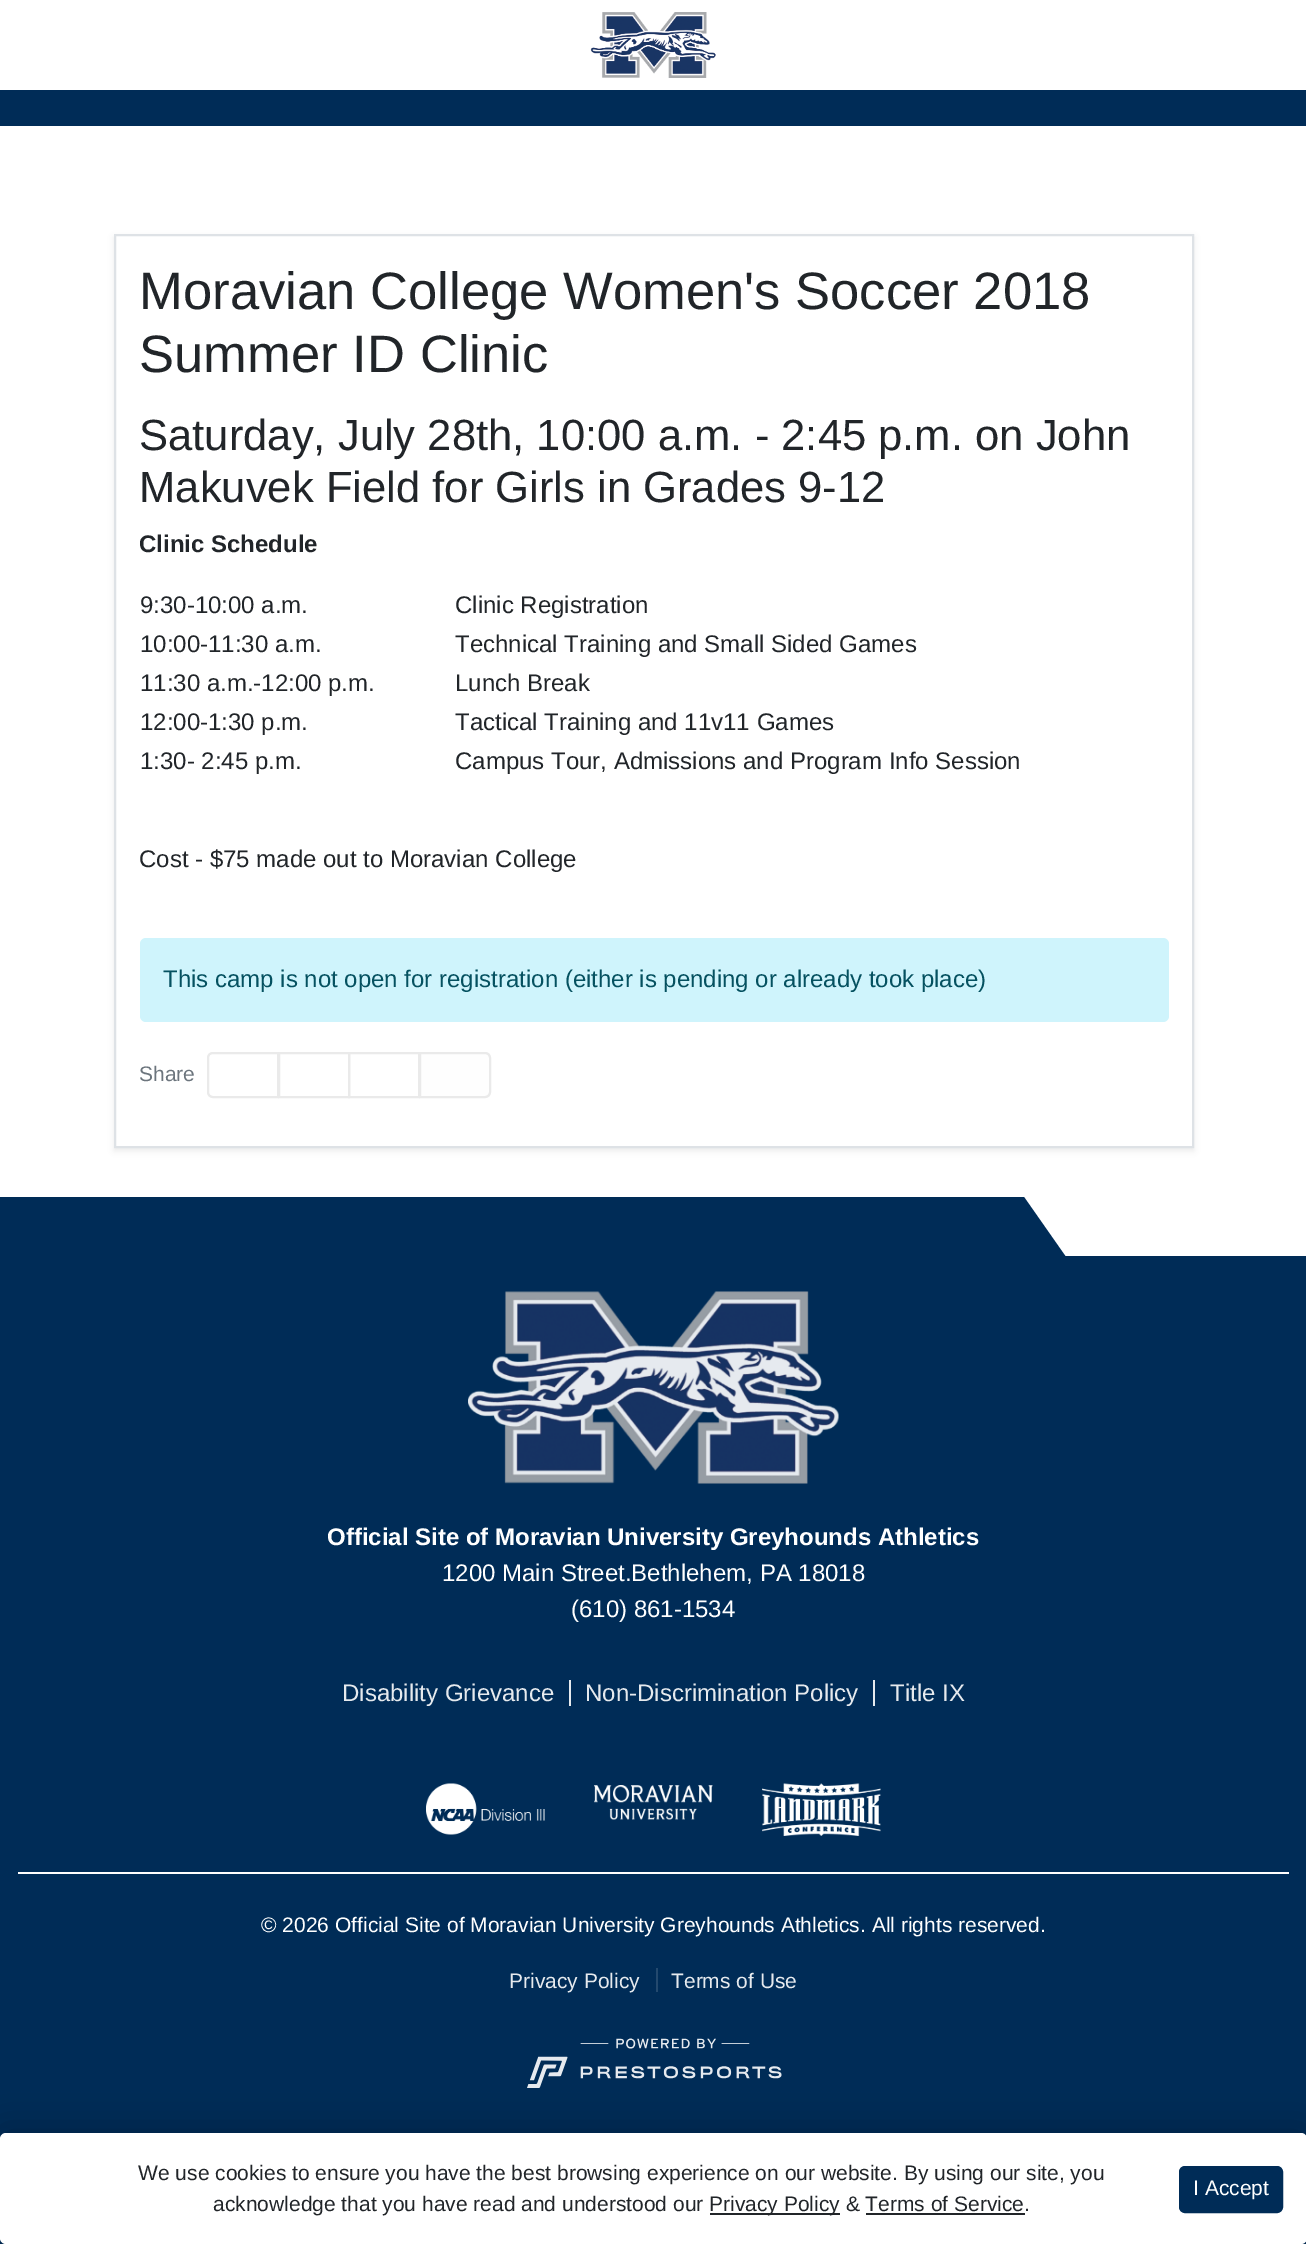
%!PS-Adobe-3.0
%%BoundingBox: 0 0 1306 2244
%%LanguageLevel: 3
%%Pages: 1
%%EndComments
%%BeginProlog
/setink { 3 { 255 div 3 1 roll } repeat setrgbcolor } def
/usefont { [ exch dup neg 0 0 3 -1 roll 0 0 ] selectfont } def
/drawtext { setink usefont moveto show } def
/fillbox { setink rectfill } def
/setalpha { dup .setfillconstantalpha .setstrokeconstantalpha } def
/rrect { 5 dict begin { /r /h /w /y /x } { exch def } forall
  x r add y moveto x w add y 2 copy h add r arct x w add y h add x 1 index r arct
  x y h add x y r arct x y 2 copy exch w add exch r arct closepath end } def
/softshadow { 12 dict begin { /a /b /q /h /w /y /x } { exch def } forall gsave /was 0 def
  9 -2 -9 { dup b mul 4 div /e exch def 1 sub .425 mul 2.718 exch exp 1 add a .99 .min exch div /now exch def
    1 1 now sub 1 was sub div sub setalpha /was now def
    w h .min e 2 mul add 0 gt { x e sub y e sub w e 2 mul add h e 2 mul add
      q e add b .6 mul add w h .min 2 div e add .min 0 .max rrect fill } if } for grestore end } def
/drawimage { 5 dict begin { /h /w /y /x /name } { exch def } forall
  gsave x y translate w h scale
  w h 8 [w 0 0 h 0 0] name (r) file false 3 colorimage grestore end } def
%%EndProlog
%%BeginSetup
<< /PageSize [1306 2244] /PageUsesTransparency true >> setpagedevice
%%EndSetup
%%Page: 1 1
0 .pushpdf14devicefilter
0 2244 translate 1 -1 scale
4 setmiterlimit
0 0 1306 2244 255 255 255 fillbox
0 90 1306 36 0 44 87 fillbox
(assets/img1.rgb) 590 12 126 66 drawimage
0 0 0 setink
114 237 1080 914 0 3 0.07 softshadow
255 255 255 setink
115 235 moveto 1193 235 lineto 1193 1147 lineto 115 1147 lineto closepath gsave fill grestore
222 226 230 setink
2 setlinewidth
stroke
(Moravian College Women's Soccer 2018) 139 309 /LiberationSans-Regular 52.6 33 37 41 drawtext
(Summer ID Clinic) 139 372 /LiberationSans-Regular 52.6 33 37 41 drawtext
(Saturday, July 28th, 10:00 a.m. - 2:45 p.m. on John) 139 450 /LiberationSans-Regular 43.6 33 37 41 drawtext
(Makuvek Field for Girls in Grades 9-12) 139 502 /LiberationSans-Regular 43.6 33 37 41 drawtext
(Clinic Schedule) 139 552 /LiberationSans-Bold 24 33 37 41 drawtext
(9:30-10:00 a.m.) 140 613 /LiberationSans-Regular 24 33 37 41 drawtext
(Clinic Registration) 455 613 /LiberationSans-Regular 24 33 37 41 drawtext
(10:00-11:30 a.m.) 140 652 /LiberationSans-Regular 24 33 37 41 drawtext
(Technical Training and Small Sided Games) 455 652 /LiberationSans-Regular 24 33 37 41 drawtext
(11:30 a.m.-12:00 p.m.) 140 691 /LiberationSans-Regular 24 33 37 41 drawtext
(Lunch Break) 455 691 /LiberationSans-Regular 24 33 37 41 drawtext
(12:00-1:30 p.m.) 140 730 /LiberationSans-Regular 24 33 37 41 drawtext
(Tactical Training and 11v11 Games) 455 730 /LiberationSans-Regular 24 33 37 41 drawtext
(1:30- 2:45 p.m.) 140 769 /LiberationSans-Regular 24 33 37 41 drawtext
(Campus Tour, Admissions and Program Info Session) 455 769 /LiberationSans-Regular 24 33 37 41 drawtext
(Cost - $75 made out to Moravian College) 139 867 /LiberationSans-Regular 24 33 37 41 drawtext
207 244 252 setink
140 938 1029 84 6 rrect fill
(This camp is not open for registration \(either is pending or already took place\)) 163 987 /LiberationSans-Regular 24 5 81 96 drawtext
(Share) 139 1081 /LiberationSans-Regular 21 108 117 125 drawtext
234 234 234 setink
213 1053 moveto 278 1053 lineto 278 1097 lineto 213 1097 lineto 210 1097 208 1095 208 1092 curveto 208 1058 lineto 208 1055 210 1053 213 1053 curveto closepath stroke
279 1053 70 44 rectstroke
349 1053 70 44 rectstroke
254 254 254 setink
420 1053 moveto 485 1053 lineto 488 1053 490 1055 490 1058 curveto 490 1092 lineto 490 1095 488 1097 485 1097 curveto 420 1097 lineto closepath gsave fill grestore
234 234 234 setink
stroke
0 1256 1306 988 0 44 87 fillbox
-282 1197 moveto 1024 1197 lineto 1066 1257 lineto -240 1257 lineto closepath fill
(assets/img2.rgb) 468 1291 371 193 drawimage
(Official Site of Moravian University Greyhounds Athletics) 327 1545 /LiberationSans-Bold 24 255 255 255 drawtext
(1200 Main Street.Bethlehem, PA 18018) 442 1581 /LiberationSans-Regular 24 255 255 255 drawtext
(\(610\) 861-1534) 571 1617 /LiberationSans-Regular 24 255 255 255 drawtext
(Disability Grievance) 342 1701 /LiberationSans-Regular 24 230 234 238 drawtext
569 1680 2 26 230 234 238 fillbox
(Non-Discrimination Policy) 585 1701 /LiberationSans-Regular 24 230 234 238 drawtext
873 1680 2 26 230 234 238 fillbox
(Title IX) 890 1701 /LiberationSans-Regular 24 230 234 238 drawtext
(assets/img3.rgb) 426 1783 119 52 drawimage
(assets/img4.rgb) 594 1785 119 35 drawimage
(assets/img5.rgb) 762 1783 119 53 drawimage
18 1872 1271 2 255 255 255 fillbox
(© 2026 Official Site of Moravian University Greyhounds Athletics. All rights reserved.) 261 1932 /LiberationSans-Regular 21 255 255 255 drawtext
(Privacy Policy) 509 1988 /LiberationSans-Regular 21 230 234 238 drawtext
656 1968 2 24 35 73 110 fillbox
(Terms of Use) 671 1988 /LiberationSans-Regular 21 230 234 238 drawtext
(assets/img6.rgb) 527 2038 255 50 drawimage
0 0 0 setink
0 2133 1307 111 6 18 0.25 softshadow
255 255 255 setink
0 2133 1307 111 6 rrect fill
(We use cookies to ensure you have the best browsing experience on our website. By using our site, you) 138 2180 /LiberationSans-Regular 21 33 37 41 drawtext
(acknowledge that you have read and understood our) 213 2211 /LiberationSans-Regular 21 33 37 41 drawtext
710 2213 130 2 33 37 41 fillbox
(Privacy Policy & Terms of Service.) 709 2211 /LiberationSans-Regular 21 33 37 41 drawtext
866 2213 159 2 33 37 41 fillbox
0 44 87 setink
1180 2167 102 45 5 rrect gsave fill grestore
stroke
(I Accept) 1193 2195 /LiberationSans-Regular 21 255 255 255 drawtext
.poppdf14devicefilter showpage
%%EOF
